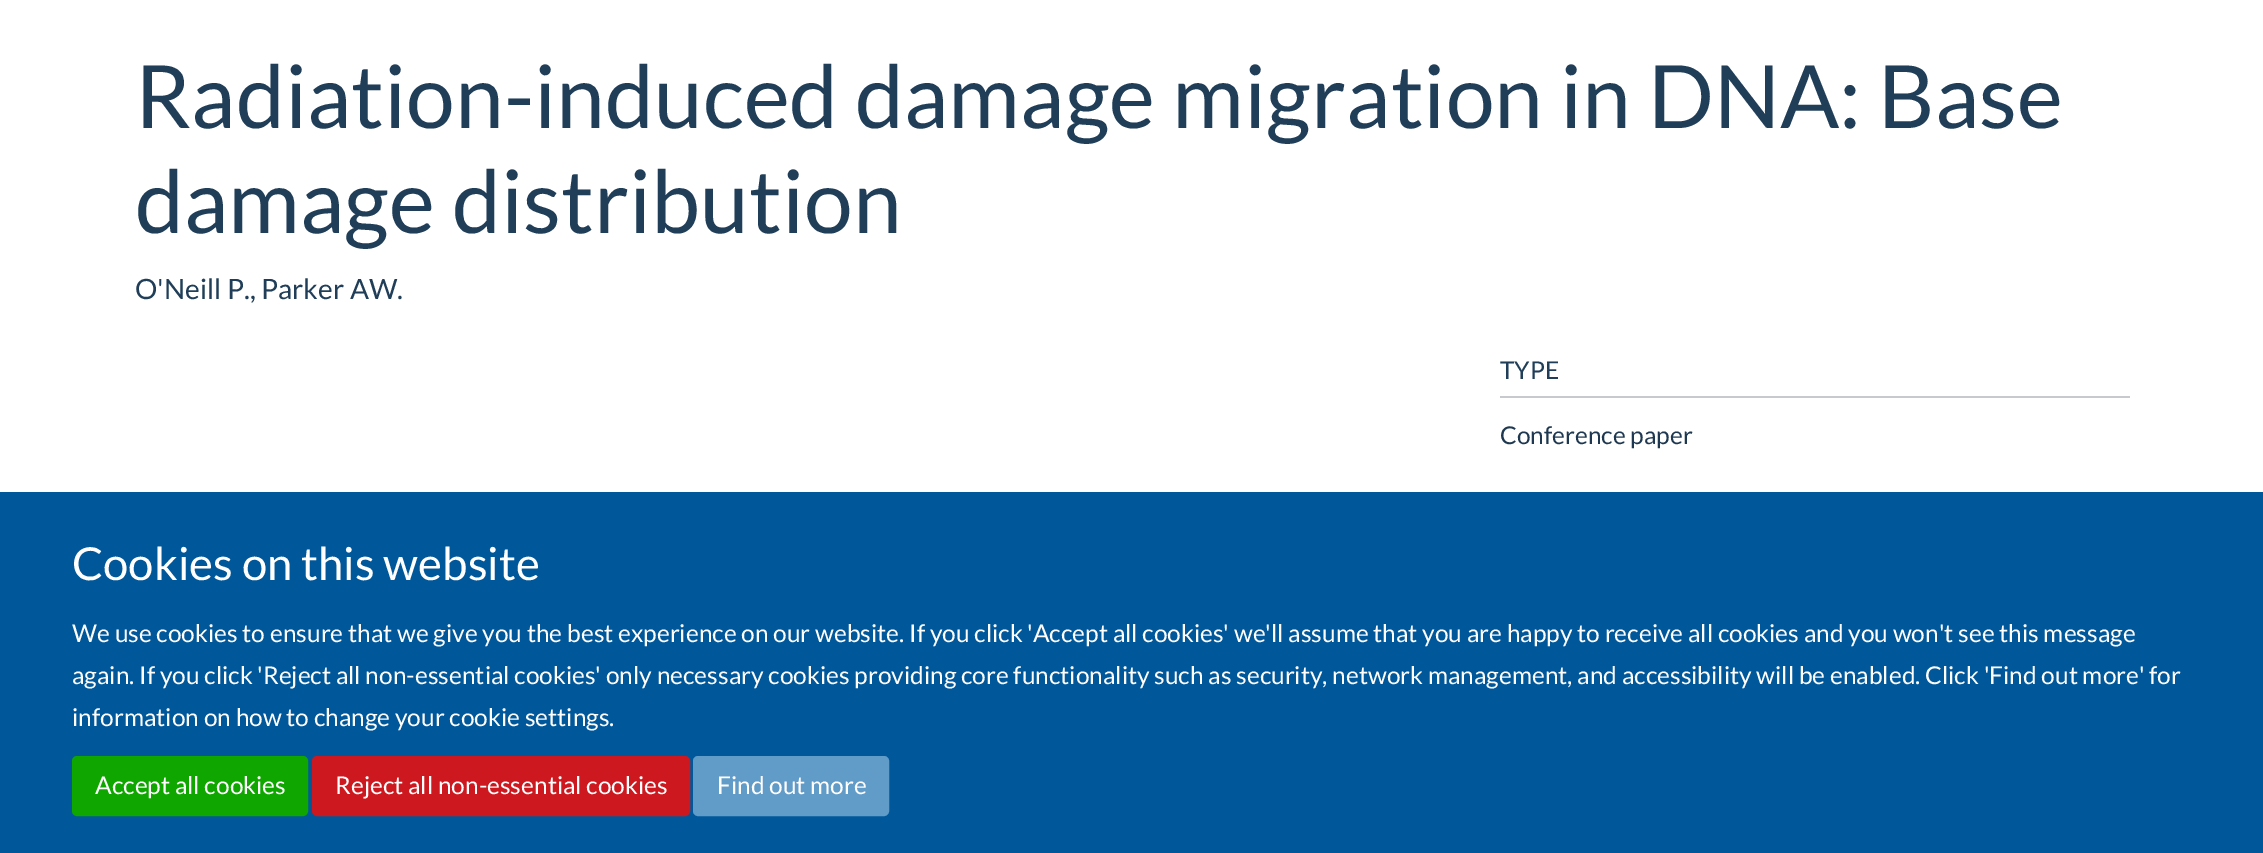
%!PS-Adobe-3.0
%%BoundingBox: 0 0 2263 853
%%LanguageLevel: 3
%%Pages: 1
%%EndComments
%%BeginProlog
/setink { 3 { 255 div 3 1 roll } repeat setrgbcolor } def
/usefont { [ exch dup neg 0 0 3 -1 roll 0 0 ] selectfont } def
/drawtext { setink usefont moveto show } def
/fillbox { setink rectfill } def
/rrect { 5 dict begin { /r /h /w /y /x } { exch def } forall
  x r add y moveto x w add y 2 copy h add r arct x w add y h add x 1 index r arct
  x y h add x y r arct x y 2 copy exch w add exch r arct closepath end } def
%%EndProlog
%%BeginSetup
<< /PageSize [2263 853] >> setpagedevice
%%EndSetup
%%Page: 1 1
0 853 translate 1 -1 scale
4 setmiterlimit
0 0 2263 853 255 255 255 fillbox
(Radiation-induced damage migration in DNA: Base) 135 128 /Lato-Regular 87.5 32 62 88 drawtext
(damage distribution) 135 233 /Lato-Regular 87.5 32 62 88 drawtext
(O'Neill P., Parker AW.) 135 299 /Lato-Regular 28 32 62 88 drawtext
1500 396 630 2 198 202 207 fillbox
(TYPE) 1500 379 /Lato-Regular 24.5 32 62 88 drawtext
(Conference paper) 1500 444 /Lato-Regular 24.5 29 56 80 drawtext
0 492 2263 361 0 88 155 fillbox
(Cookies on this website) 72 580 /Lato-Regular 45.5 255 255 255 drawtext
(We use cookies to ensure that we give you the best experience on our website. If you click 'Accept all cookies' we'll assume that you are happy to receive all cookies and you won't see this message) 72 642 /Lato-Regular 24.5 255 255 255 drawtext
(again. If you click 'Reject all non-essential cookies' only necessary cookies providing core functionality such as security, network management, and accessibility will be enabled. Click 'Find out more' for) 72 684 /Lato-Regular 24.5 255 255 255 drawtext
(information on how to change your cookie settings.) 72 726 /Lato-Regular 24.5 255 255 255 drawtext
15 166 0 setink
73 757 234 58 4 rrect gsave fill grestore
2 setlinewidth
stroke
(Accept all cookies) 95 794 /Lato-Regular 24.5 255 255 255 drawtext
204 24 30 setink
313 757 376 58 4 rrect gsave fill grestore
stroke
(Reject all non-essential cookies) 335 794 /Lato-Regular 24.5 255 255 255 drawtext
97 155 199 setink
694 757 194 58 4 rrect gsave fill grestore
stroke
(Find out more) 717 794 /Lato-Regular 24.5 255 255 255 drawtext
showpage
%%EOF
